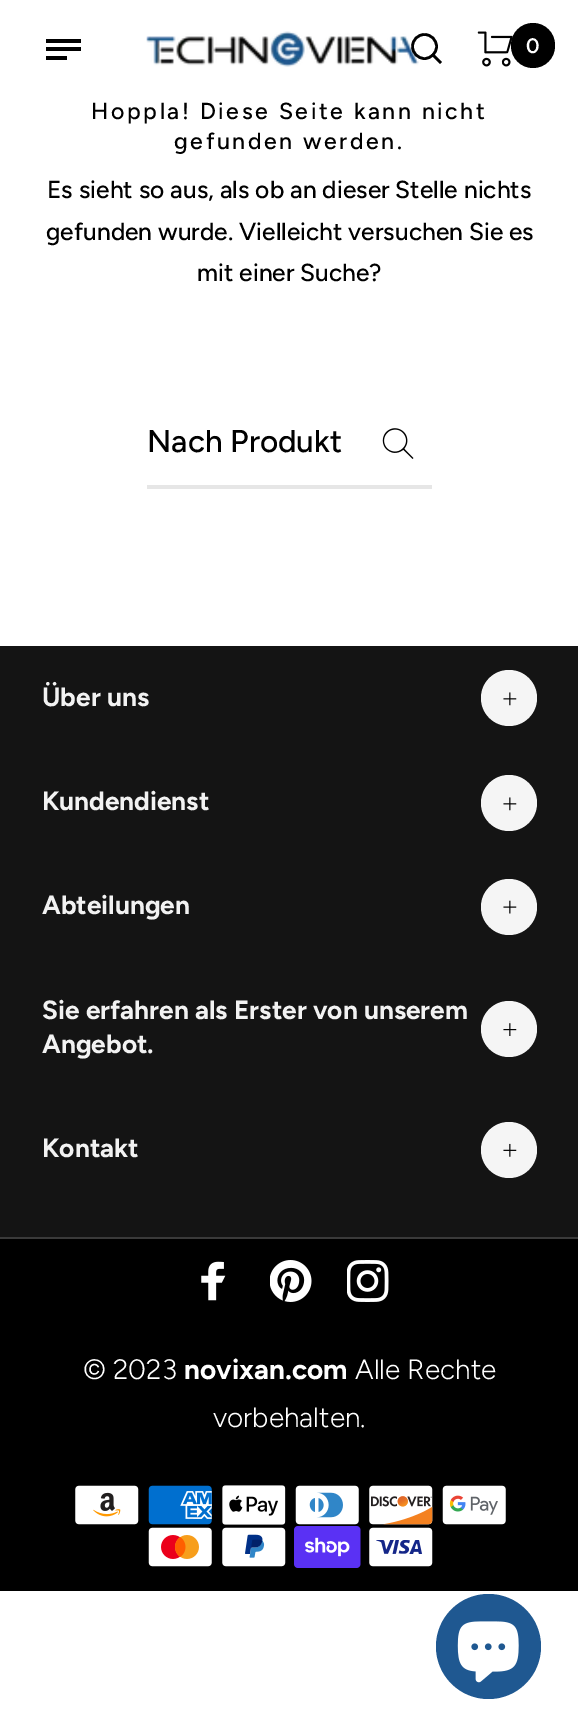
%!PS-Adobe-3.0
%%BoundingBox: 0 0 578 1736
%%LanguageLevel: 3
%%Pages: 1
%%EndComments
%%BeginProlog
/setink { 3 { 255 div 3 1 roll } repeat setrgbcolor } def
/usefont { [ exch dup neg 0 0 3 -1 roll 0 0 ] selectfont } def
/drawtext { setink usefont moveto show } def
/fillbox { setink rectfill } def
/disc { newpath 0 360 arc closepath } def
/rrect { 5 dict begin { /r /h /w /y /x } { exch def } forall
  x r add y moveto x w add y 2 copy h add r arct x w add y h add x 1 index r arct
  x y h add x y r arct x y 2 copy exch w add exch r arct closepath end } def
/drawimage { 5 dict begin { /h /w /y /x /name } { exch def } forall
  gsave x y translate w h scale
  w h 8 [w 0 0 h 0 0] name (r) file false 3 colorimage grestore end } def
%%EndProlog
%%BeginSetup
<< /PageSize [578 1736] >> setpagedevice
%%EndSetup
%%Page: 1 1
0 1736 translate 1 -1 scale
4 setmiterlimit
0 0 578 1736 255 255 255 fillbox
46 39 35 4 0 0 0 fillbox
46 47 35 4 0 0 0 fillbox
46 56 21 4 0 0 0 fillbox
(assets/img1.rgb) 146 31 273 36 drawimage
2.6 setlinewidth
2 setlinecap
440 62 moveto 433 55 lineto stroke
0 setlinecap
424.5 46.5 12 disc stroke
(assets/img2.rgb) 477 31 36 36 drawimage
511 23 44 45 22 rrect fill
(0) 526 53 /Figtree-SemiBold 21 255 255 255 drawtext
0 646 578 591 20 20 20 fillbox
/Figtree-Medium 23.1 usefont
0 0 0 setink
91 119 moveto 2.6 0 (Hoppla! Diese Seite kann nicht) ashow
174 149 moveto 2.6 0 (gefunden werden.) ashow
(Es sieht so aus, als ob an dieser Stelle nichts) 47 198 /Figtree-Medium 24.5 0 0 0 drawtext
(gefunden wurde. Vielleicht versuchen Sie es) 46 240 /Figtree-Medium 24.5 0 0 0 drawtext
(mit einer Suche?) 197 281 /Figtree-Medium 24.5 0 0 0 drawtext
147 485 285 4 230 230 230 fillbox
(Nach Produkt) 147 452 /Figtree-Medium 31.5 0 0 0 drawtext
(assets/img3.rgb) 382 428 32 31 drawimage
(Über uns) 42 706 /Figtree-Bold 26.25 242 242 242 drawtext
245 245 245 setink
509 698 28 disc fill
(assets/img4.rgb) 503 692 14 14 drawimage
(Kundendienst) 42 810 /Figtree-Bold 26.25 242 242 242 drawtext
245 245 245 setink
509 803 28 disc fill
(assets/img4.rgb) 503 797 14 14 drawimage
(Abteilungen) 42 914 /Figtree-Bold 26.25 242 242 242 drawtext
245 245 245 setink
509 907 28 disc fill
(assets/img5.rgb) 503 900 14 14 drawimage
(Sie erfahren als Erster von unserem) 42 1019 /Figtree-Bold 26.25 242 242 242 drawtext
245 245 245 setink
509 1029 28 disc fill
(assets/img6.rgb) 503 1023 14 13 drawimage
(Angebot.) 42 1053 /Figtree-Bold 26.25 242 242 242 drawtext
(Kontakt) 42 1157 /Figtree-Bold 26.25 242 242 242 drawtext
245 245 245 setink
509 1150 28 disc fill
(assets/img7.rgb) 503 1143 14 14 drawimage
0 1239 578 352 0 0 0 fillbox
0 1237 578 2 58 58 58 fillbox
(assets/img8.rgb) 201 1261 25 40 drawimage
(assets/img9.rgb) 270 1260 42 42 drawimage
(assets/img10.rgb) 347 1260 42 42 drawimage
(© 2023) 83 1379 /Figtree-Light 28 255 255 255 drawtext
(novixan.com) 184 1379 /Figtree-Bold 28 255 255 255 drawtext
(Alle Rechte) 355 1379 /Figtree-Light 28 255 255 255 drawtext
(vorbehalten.) 213 1427 /Figtree-Light 28 255 255 255 drawtext
(assets/img11.rgb) 75 1485 64 40 drawimage
(assets/img12.rgb) 148 1485 64 40 drawimage
(assets/img13.rgb) 222 1485 64 40 drawimage
(assets/img14.rgb) 295 1485 64 40 drawimage
(assets/img15.rgb) 369 1485 64 40 drawimage
(assets/img16.rgb) 442 1485 64 40 drawimage
(assets/img17.rgb) 148 1527 64 40 drawimage
(assets/img18.rgb) 222 1527 64 40 drawimage
(assets/img19.rgb) 294 1526 67 42 drawimage
(assets/img20.rgb) 369 1527 64 40 drawimage
31 88 145 setink
488.5 1646.5 52.5 disc fill
(assets/img21.rgb) 457 1621 62 62 drawimage
showpage
%%EOF
